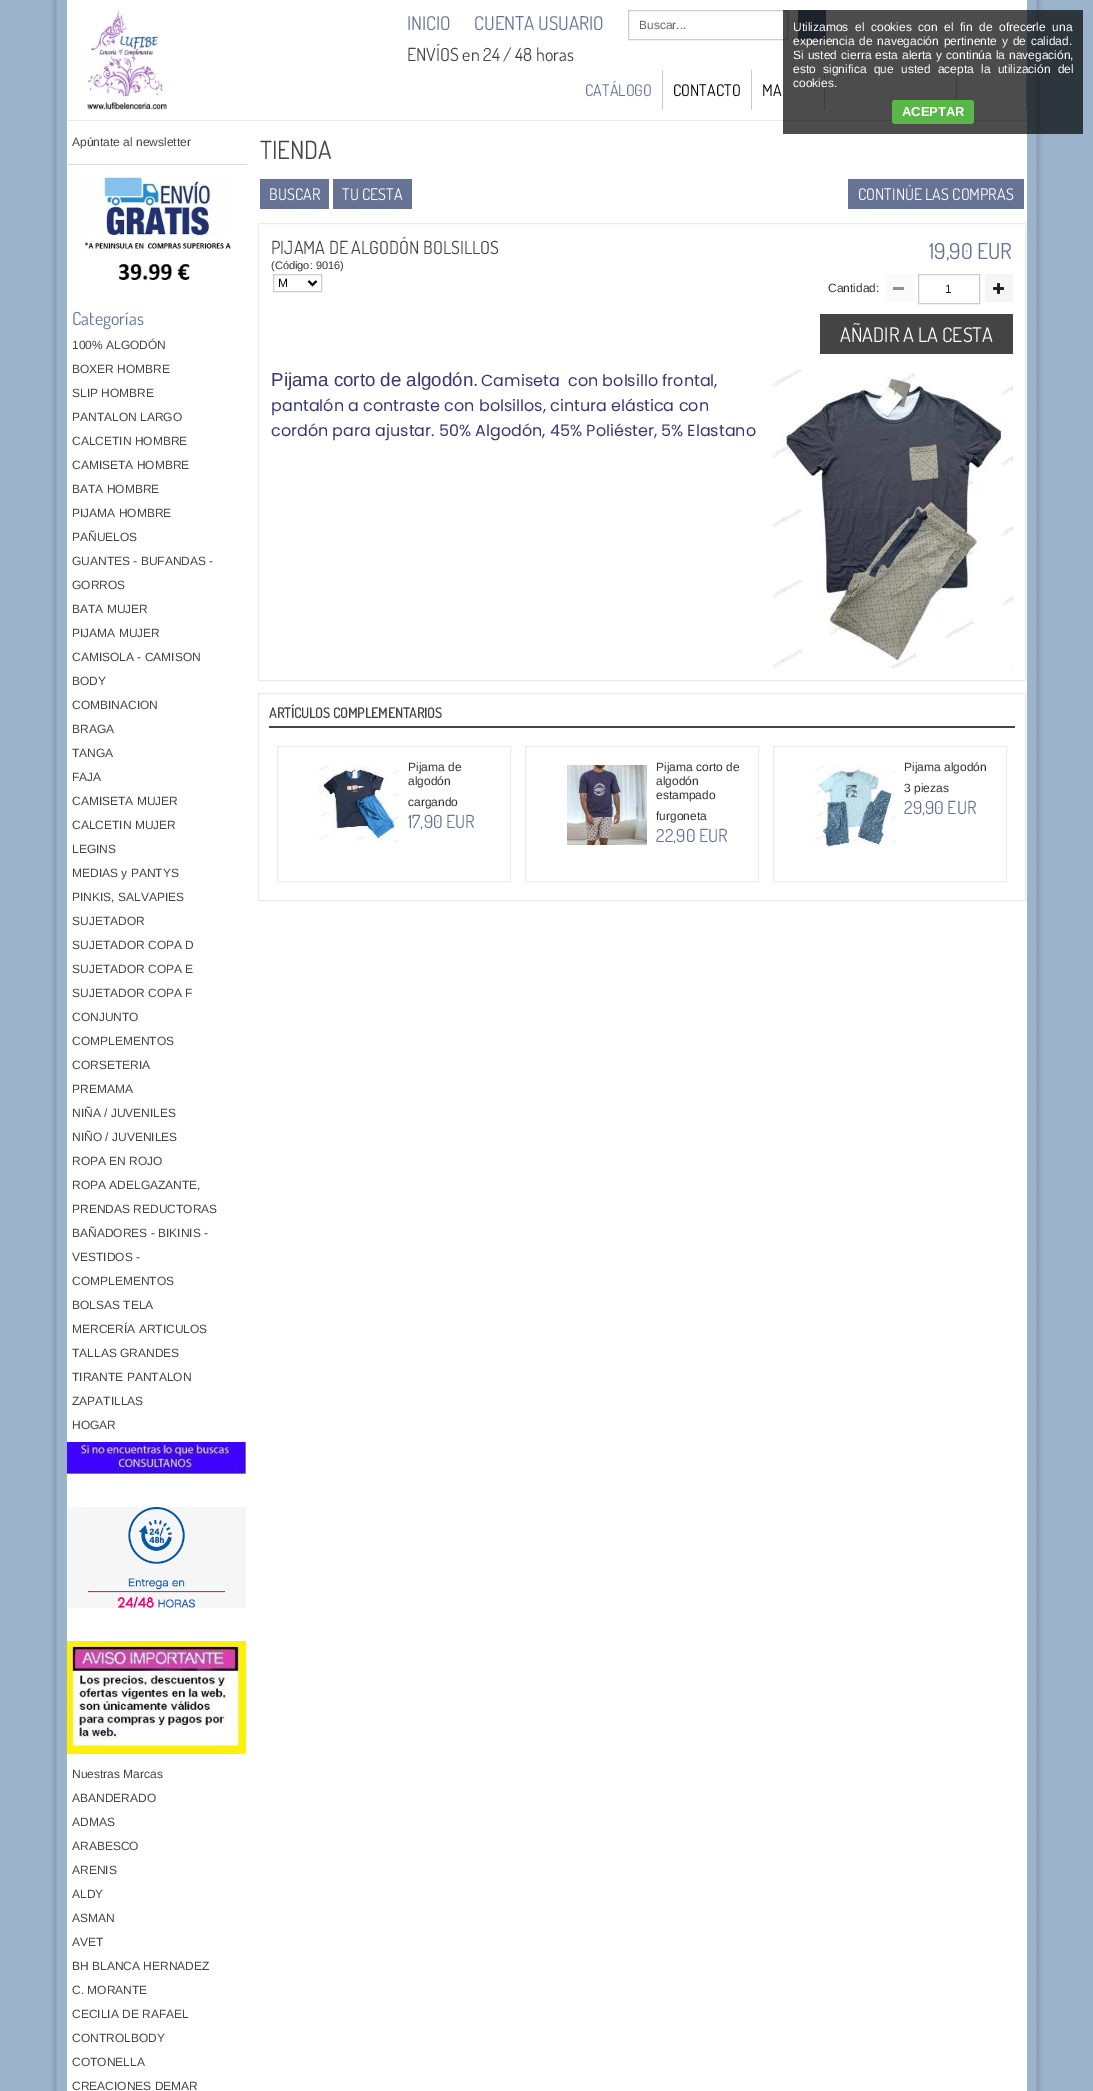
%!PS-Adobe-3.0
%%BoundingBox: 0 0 1093 2091
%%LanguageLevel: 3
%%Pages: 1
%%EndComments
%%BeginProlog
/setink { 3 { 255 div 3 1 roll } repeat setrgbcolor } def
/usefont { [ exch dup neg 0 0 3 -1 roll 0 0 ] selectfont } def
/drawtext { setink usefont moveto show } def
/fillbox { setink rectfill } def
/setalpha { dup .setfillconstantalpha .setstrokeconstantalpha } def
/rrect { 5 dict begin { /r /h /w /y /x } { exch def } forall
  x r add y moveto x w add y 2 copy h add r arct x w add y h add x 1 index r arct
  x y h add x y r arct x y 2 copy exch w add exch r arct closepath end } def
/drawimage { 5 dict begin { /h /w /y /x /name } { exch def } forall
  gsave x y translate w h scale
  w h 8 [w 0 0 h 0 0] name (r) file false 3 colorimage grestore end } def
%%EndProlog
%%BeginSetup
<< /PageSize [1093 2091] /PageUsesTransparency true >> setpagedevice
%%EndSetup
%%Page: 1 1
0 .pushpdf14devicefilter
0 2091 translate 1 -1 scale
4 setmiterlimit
0 0 1093 2091 155 180 204 fillbox
(assets/img1.rgb) 50 0 993 2091 drawimage
67 0 960 120 255 255 255 fillbox
67 120 960 1 235 235 235 fillbox
(assets/img2.rgb) 87 11 80 99 drawimage
(INICIO) 407 30 /Dosis-Regular 19 102 115 148 drawtext
(CUENTA USUARIO) 474 30 /Dosis-Regular 19 102 115 148 drawtext
204 204 204 setink
628.5 10.5 159 29 rectstroke
(Buscar...) 639 29 /LiberationSans-Regular 12 102 102 102 drawtext
798 10 28 30 102 115 148 fillbox
(ENVÍOS en 24 / 48 horas) 407 61 /Dosis-Regular 18 68 68 68 drawtext
662 70 1 40 204 204 204 fillbox
(CATÁLOGO) 585 96 /Dosis-Regular 16 102 115 148 drawtext
751 70 1 40 204 204 204 fillbox
(CONTACTO) 673 96 /Dosis-Regular 16 0 0 0 drawtext
824 70 1 40 204 204 204 fillbox
(MA) 762 96 /Dosis-Regular 16 0 0 0 drawtext
956 70 1 30 204 204 204 fillbox
1026 70 1 40 204 204 204 fillbox
67 121 960 1970 255 255 255 fillbox
(Apúntate al newsletter) 72 146 /LiberationSans-Regular 12 68 68 68 drawtext
67 164 180 1 221 221 221 fillbox
(assets/img3.rgb) 84 175 148 107 drawimage
(Categorías) 72 325 /Dosis-Regular 18 102 115 148 drawtext
(100% ALGODÓN) 72 349 /LiberationSans-Regular 12 68 68 68 drawtext
(BOXER HOMBRE) 72 373 /LiberationSans-Regular 12 68 68 68 drawtext
(SLIP HOMBRE) 72 397 /LiberationSans-Regular 12 68 68 68 drawtext
(PANTALON LARGO) 72 421 /LiberationSans-Regular 12 68 68 68 drawtext
(CALCETIN HOMBRE) 72 445 /LiberationSans-Regular 12 68 68 68 drawtext
(CAMISETA HOMBRE) 72 469 /LiberationSans-Regular 12 68 68 68 drawtext
(BATA HOMBRE) 72 493 /LiberationSans-Regular 12 68 68 68 drawtext
(PIJAMA HOMBRE) 72 517 /LiberationSans-Regular 12 68 68 68 drawtext
(PAÑUELOS) 72 541 /LiberationSans-Regular 12 68 68 68 drawtext
(GUANTES - BUFANDAS -) 72 565 /LiberationSans-Regular 12 68 68 68 drawtext
(GORROS) 72 589 /LiberationSans-Regular 12 68 68 68 drawtext
(BATA MUJER) 72 613 /LiberationSans-Regular 12 68 68 68 drawtext
(PIJAMA MUJER) 72 637 /LiberationSans-Regular 12 68 68 68 drawtext
(CAMISOLA - CAMISON) 72 661 /LiberationSans-Regular 12 68 68 68 drawtext
(BODY) 72 685 /LiberationSans-Regular 12 68 68 68 drawtext
(COMBINACION) 72 709 /LiberationSans-Regular 12 68 68 68 drawtext
(BRAGA) 72 733 /LiberationSans-Regular 12 68 68 68 drawtext
(TANGA) 72 757 /LiberationSans-Regular 12 68 68 68 drawtext
(FAJA) 72 781 /LiberationSans-Regular 12 68 68 68 drawtext
(CAMISETA MUJER) 72 805 /LiberationSans-Regular 12 68 68 68 drawtext
(CALCETIN MUJER) 72 829 /LiberationSans-Regular 12 68 68 68 drawtext
(LEGINS) 72 853 /LiberationSans-Regular 12 68 68 68 drawtext
(MEDIAS y PANTYS) 72 877 /LiberationSans-Regular 12 68 68 68 drawtext
(PINKIS, SALVAPIES) 72 901 /LiberationSans-Regular 12 68 68 68 drawtext
(SUJETADOR) 72 925 /LiberationSans-Regular 12 68 68 68 drawtext
(SUJETADOR COPA D) 72 949 /LiberationSans-Regular 12 68 68 68 drawtext
(SUJETADOR COPA E) 72 973 /LiberationSans-Regular 12 68 68 68 drawtext
(SUJETADOR COPA F) 72 997 /LiberationSans-Regular 12 68 68 68 drawtext
(CONJUNTO) 72 1021 /LiberationSans-Regular 12 68 68 68 drawtext
(COMPLEMENTOS) 72 1045 /LiberationSans-Regular 12 68 68 68 drawtext
(CORSETERIA) 72 1069 /LiberationSans-Regular 12 68 68 68 drawtext
(PREMAMA) 72 1093 /LiberationSans-Regular 12 68 68 68 drawtext
(NIÑA / JUVENILES) 72 1117 /LiberationSans-Regular 12 68 68 68 drawtext
(NIÑO / JUVENILES) 72 1141 /LiberationSans-Regular 12 68 68 68 drawtext
(ROPA EN ROJO) 72 1165 /LiberationSans-Regular 12 68 68 68 drawtext
(ROPA ADELGAZANTE,) 72 1189 /LiberationSans-Regular 12 68 68 68 drawtext
(PRENDAS REDUCTORAS) 72 1213 /LiberationSans-Regular 12 68 68 68 drawtext
(BAÑADORES - BIKINIS -) 72 1237 /LiberationSans-Regular 12 68 68 68 drawtext
(VESTIDOS -) 72 1261 /LiberationSans-Regular 12 68 68 68 drawtext
(COMPLEMENTOS) 72 1285 /LiberationSans-Regular 12 68 68 68 drawtext
(BOLSAS TELA) 72 1309 /LiberationSans-Regular 12 68 68 68 drawtext
(MERCERÍA ARTICULOS) 72 1333 /LiberationSans-Regular 12 68 68 68 drawtext
(TALLAS GRANDES) 72 1357 /LiberationSans-Regular 12 68 68 68 drawtext
(TIRANTE PANTALON) 72 1381 /LiberationSans-Regular 12 68 68 68 drawtext
(ZAPATILLAS) 72 1405 /LiberationSans-Regular 12 68 68 68 drawtext
(HOGAR) 72 1429 /LiberationSans-Regular 12 68 68 68 drawtext
(assets/img4.rgb) 67 1442 179 32 drawimage
(assets/img5.rgb) 67 1507 179 101 drawimage
(assets/img6.rgb) 67 1641 179 113 drawimage
(Nuestras Marcas) 72 1778 /LiberationSans-Regular 12 68 68 68 drawtext
(ABANDERADO) 72 1802 /LiberationSans-Regular 12 68 68 68 drawtext
(ADMAS) 72 1826 /LiberationSans-Regular 12 68 68 68 drawtext
(ARABESCO) 72 1850 /LiberationSans-Regular 12 68 68 68 drawtext
(ARENIS) 72 1874 /LiberationSans-Regular 12 68 68 68 drawtext
(ALDY) 72 1898 /LiberationSans-Regular 12 68 68 68 drawtext
(ASMAN) 72 1922 /LiberationSans-Regular 12 68 68 68 drawtext
(AVET) 72 1946 /LiberationSans-Regular 12 68 68 68 drawtext
(BH BLANCA HERNADEZ) 72 1970 /LiberationSans-Regular 12 68 68 68 drawtext
(C. MORANTE) 72 1994 /LiberationSans-Regular 12 68 68 68 drawtext
(CECILIA DE RAFAEL) 72 2018 /LiberationSans-Regular 12 68 68 68 drawtext
(CONTROLBODY) 72 2042 /LiberationSans-Regular 12 68 68 68 drawtext
(COTONELLA) 72 2066 /LiberationSans-Regular 12 68 68 68 drawtext
(CREACIONES DEMAR) 72 2090 /LiberationSans-Regular 12 68 68 68 drawtext
(TIENDA) 260 159 /Dosis-Regular 25 68 68 68 drawtext
260 179 69 30 102 115 148 fillbox
(BUSCAR) 269 200 /Dosis-Regular 16 255 255 255 drawtext
333 179 79 30 102 115 148 fillbox
(TU CESTA) 342 200 /Dosis-Regular 16 255 255 255 drawtext
848 179 176 30 102 115 148 fillbox
(CONTINÚE LAS COMPRAS) 858 200 /Dosis-Regular 16 255 255 255 drawtext
235 235 235 setink
258.5 223.5 767 457 rectstroke
(PIJAMA DE ALGODÓN BOLSILLOS) 271 254 /Dosis-Regular 18 68 68 68 drawtext
(\(Código: 9016\)) 271 269 /LiberationSans-Regular 11 51 51 51 drawtext
204 204 204 setink
273.5 274.5 48 17 rectstroke
0 0 0 setink
2 setlinewidth
308.5 281 moveto 312.5 285 lineto 316.5 281 lineto stroke
(M) 278 287 /LiberationSans-Regular 12 0 0 0 drawtext
(19,90 EUR) 929 259 /Dosis-Regular 22 102 115 148 drawtext
(Cantidad:) 828 292 /LiberationSans-Regular 12 51 51 51 drawtext
885 274 28 28 250 250 250 fillbox
893 287 11 3 142 142 142 fillbox
204 204 204 setink
1 setlinewidth
918.5 274.5 61 29 rectstroke
(1) 945 293 /LiberationSans-Regular 12 33 33 33 drawtext
985 274 28 28 245 245 245 fillbox
(assets/img7.rgb) 993 283 11 11 drawimage
820 314 193 40 68 68 68 fillbox
(AÑADIR A LA CESTA) 840 342 /Dosis-Regular 20 255 255 255 drawtext
(Pijama corto de algodón.) 271 386 /LiberationSans-Regular 18.75 58 58 115 drawtext
(Camiseta  con bolsillo frontal,) 481 386 /Poppins-Regular 16 58 58 115 drawtext
(assets/img8.rgb) 772 368 241 300 drawimage
(pantalón a contraste con bolsillos, cintura elástica con) 271 411 /Poppins-Regular 16 58 58 115 drawtext
(cordón para ajustar. 50% Algodón, 45% Poliéster, 5% Elastano) 271 436 /Poppins-Regular 16 58 58 115 drawtext
235 235 235 setink
258.5 693.5 767 207 rectstroke
269 726 746 2 68 68 68 fillbox
(ARTÍCULOS COMPLEMENTARIOS) 269 718 /Dosis-Bold 14 68 68 68 drawtext
235 235 235 setink
277.5 746.5 233 135 rectstroke
(assets/img9.rgb) 319 765 80 78 drawimage
(Pijama de) 408 771 /LiberationSans-Regular 12 51 51 51 drawtext
(algodón) 408 785 /LiberationSans-Regular 12 51 51 51 drawtext
(cargando) 408 806 /LiberationSans-Regular 12 51 51 51 drawtext
(17,90 EUR) 408 828 /Dosis-Regular 18 102 115 148 drawtext
235 235 235 setink
525.5 746.5 233 135 rectstroke
(assets/img10.rgb) 567 765 80 80 drawimage
(Pijama corto de) 656 771 /LiberationSans-Regular 12 51 51 51 drawtext
(algodón) 656 785 /LiberationSans-Regular 12 51 51 51 drawtext
(estampado) 656 799 /LiberationSans-Regular 12 51 51 51 drawtext
(furgoneta) 656 820 /LiberationSans-Regular 12 51 51 51 drawtext
(22,90 EUR) 656 842 /Dosis-Regular 18 102 115 148 drawtext
235 235 235 setink
773.5 746.5 233 135 rectstroke
(assets/img11.rgb) 815 765 80 83 drawimage
(Pijama algodón) 904 771 /LiberationSans-Regular 12 51 51 51 drawtext
(3 piezas) 904 792 /LiberationSans-Regular 12 51 51 51 drawtext
(29,90 EUR) 904 814 /Dosis-Regular 18 102 115 148 drawtext
0.7 setalpha
783 10 300 124 0 0 0 fillbox
/LiberationSans-Regular 12 usefont
1 setalpha
255 255 255 setink
793 31 moveto 3.25 0 32 (Utilizamos el cookies con el fin de ofrecerle una) widthshow
793 45 moveto 1.5 0 32 (experiencia de navegación pertinente y de calidad.) widthshow
793 59 moveto 0.75 0 32 (Si usted cierra esta alerta y continúa la navegación,) widthshow
793 73 moveto 4 0 32 (esto significa que usted acepta la utilización del) widthshow
(cookies.) 793 87 /LiberationSans-Regular 12 255 255 255 drawtext
88 183 71 setink
892 100 82 24 3 rrect fill
(ACEPTAR) 902 116 /LiberationSans-Bold 13 255 255 255 drawtext
.poppdf14devicefilter showpage
%%EOF
